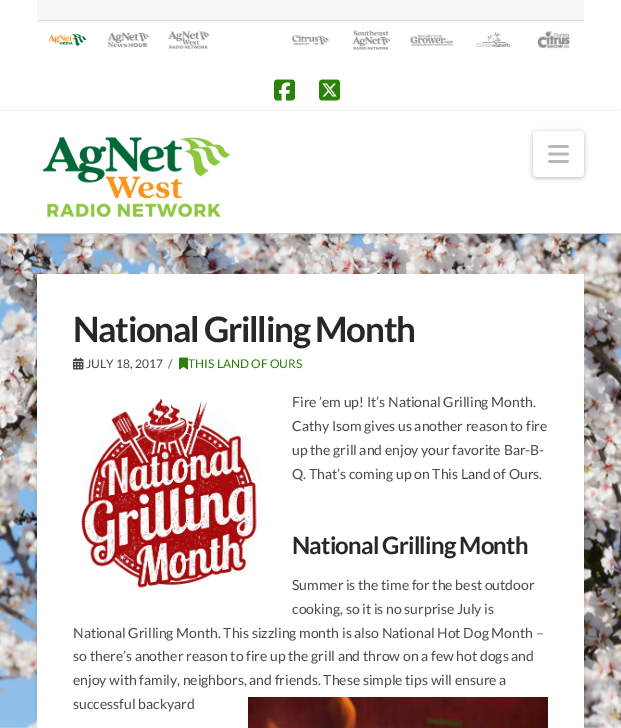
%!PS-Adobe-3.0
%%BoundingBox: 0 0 621 728
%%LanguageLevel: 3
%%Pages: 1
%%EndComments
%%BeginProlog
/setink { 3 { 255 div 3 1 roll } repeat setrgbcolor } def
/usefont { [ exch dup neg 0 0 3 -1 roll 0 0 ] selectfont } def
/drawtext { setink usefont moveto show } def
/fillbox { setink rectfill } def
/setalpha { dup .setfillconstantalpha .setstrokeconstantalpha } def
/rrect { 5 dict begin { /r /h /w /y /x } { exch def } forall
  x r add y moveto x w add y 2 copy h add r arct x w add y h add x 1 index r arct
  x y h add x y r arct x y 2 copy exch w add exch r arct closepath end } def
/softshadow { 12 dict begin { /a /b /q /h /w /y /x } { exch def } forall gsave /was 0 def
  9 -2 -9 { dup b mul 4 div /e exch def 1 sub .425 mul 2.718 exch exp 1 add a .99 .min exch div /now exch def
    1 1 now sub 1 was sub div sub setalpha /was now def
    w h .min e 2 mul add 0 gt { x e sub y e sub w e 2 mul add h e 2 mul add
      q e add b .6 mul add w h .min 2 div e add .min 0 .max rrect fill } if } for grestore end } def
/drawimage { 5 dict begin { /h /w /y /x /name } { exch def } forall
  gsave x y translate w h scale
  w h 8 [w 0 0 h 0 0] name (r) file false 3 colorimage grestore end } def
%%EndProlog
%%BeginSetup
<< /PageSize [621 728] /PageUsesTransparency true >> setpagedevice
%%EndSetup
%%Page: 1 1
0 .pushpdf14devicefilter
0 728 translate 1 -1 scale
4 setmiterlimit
0 0 621 728 255 255 255 fillbox
(assets/img1.rgb) 0 234 621 494 drawimage
0 0 0 setink
0 113 621 123 0 2.5 0.13 softshadow
5 109 611 1 255 255 255 fillbox
0 110 621 1 242 242 242 fillbox
246 246 246 setink
37 0 moveto 584 0 lineto 584 16 lineto 584 18 582 20 580 20 curveto 41 20 lineto 39 20 37 18 37 16 curveto closepath fill
37 20 547 1 221 221 221 fillbox
(assets/img2.rgb) 537 30 33 19 drawimage
(assets/img3.rgb) 48 33 39 13 drawimage
(assets/img4.rgb) 107 32 43 16 drawimage
(assets/img5.rgb) 168 31 42 18 drawimage
(assets/img6.rgb) 291 34 39 12 drawimage
(assets/img7.rgb) 352 30 39 20 drawimage
(assets/img8.rgb) 410 34 44 12 drawimage
(assets/img9.rgb) 476 32 35 16 drawimage
(assets/img10.rgb) 274 79 21 22 drawimage
(assets/img11.rgb) 319 79 21 22 drawimage
0 111 621 122 255 255 255 fillbox
0 233 621 1 204 204 204 fillbox
(assets/img12.rgb) 42 136 189 82 drawimage
0 0 0 setink
533 132 51 46 4 2.5 0.25 softshadow
255 255 255 setink
533 131 51 46 4 rrect fill
(assets/img13.rgb) 548 145 21 18 drawimage
0 0 0 setink
37 276 547 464 4 2.5 0.13 softshadow
37 274 547 454 255 255 255 fillbox
/Lato-Bold 35 usefont
39 39 39 setink
73 342 moveto -1.25 0 (National Grilling Month) ashow
(assets/img14.rgb) 73 357 11 13 drawimage
(JULY 18, 2017) 86 368 /Lato-Regular 12 74 74 74 drawtext
(/) 168 368 /Lato-Regular 12 74 74 74 drawtext
(assets/img15.rgb) 179 357 9 13 drawimage
(THIS LAND OF OURS) 188 368 /Lato-Regular 12 43 130 9 drawtext
(assets/img16.rgb) 81 398 182 190 drawimage
(Fire ’em up! It’s National Grilling Month.) 292 407 /Lato-Regular 14 74 74 74 drawtext
(Cathy Isom gives us another reason to fire) 292 431 /Lato-Regular 14 74 74 74 drawtext
(up the grill and enjoy your favorite Bar-B-) 292 455 /Lato-Regular 14 74 74 74 drawtext
(Q. That’s coming up on This Land of Ours.) 292 479 /Lato-Regular 14 74 74 74 drawtext
/Lato-Bold 24 usefont
39 39 39 setink
292 554 moveto -0.8 0 (National Grilling Month) ashow
(Summer is the time for the best outdoor) 292 590 /Lato-Regular 14 74 74 74 drawtext
(cooking, so it is no surprise July is) 292 614 /Lato-Regular 14 74 74 74 drawtext
(National Grilling Month. This sizzling month is also National Hot Dog Month –) 73 638 /Lato-Regular 14 74 74 74 drawtext
(so there’s another reason to fire up the grill and throw on a few hot dogs and) 73 661 /Lato-Regular 14 74 74 74 drawtext
(enjoy with family, neighbors, and friends. These simple tips will ensure a) 73 685 /Lato-Regular 14 74 74 74 drawtext
(successful backyard) 73 709 /Lato-Regular 14 74 74 74 drawtext
(assets/img17.rgb) 248 697 300 31 drawimage
.poppdf14devicefilter showpage
%%EOF
